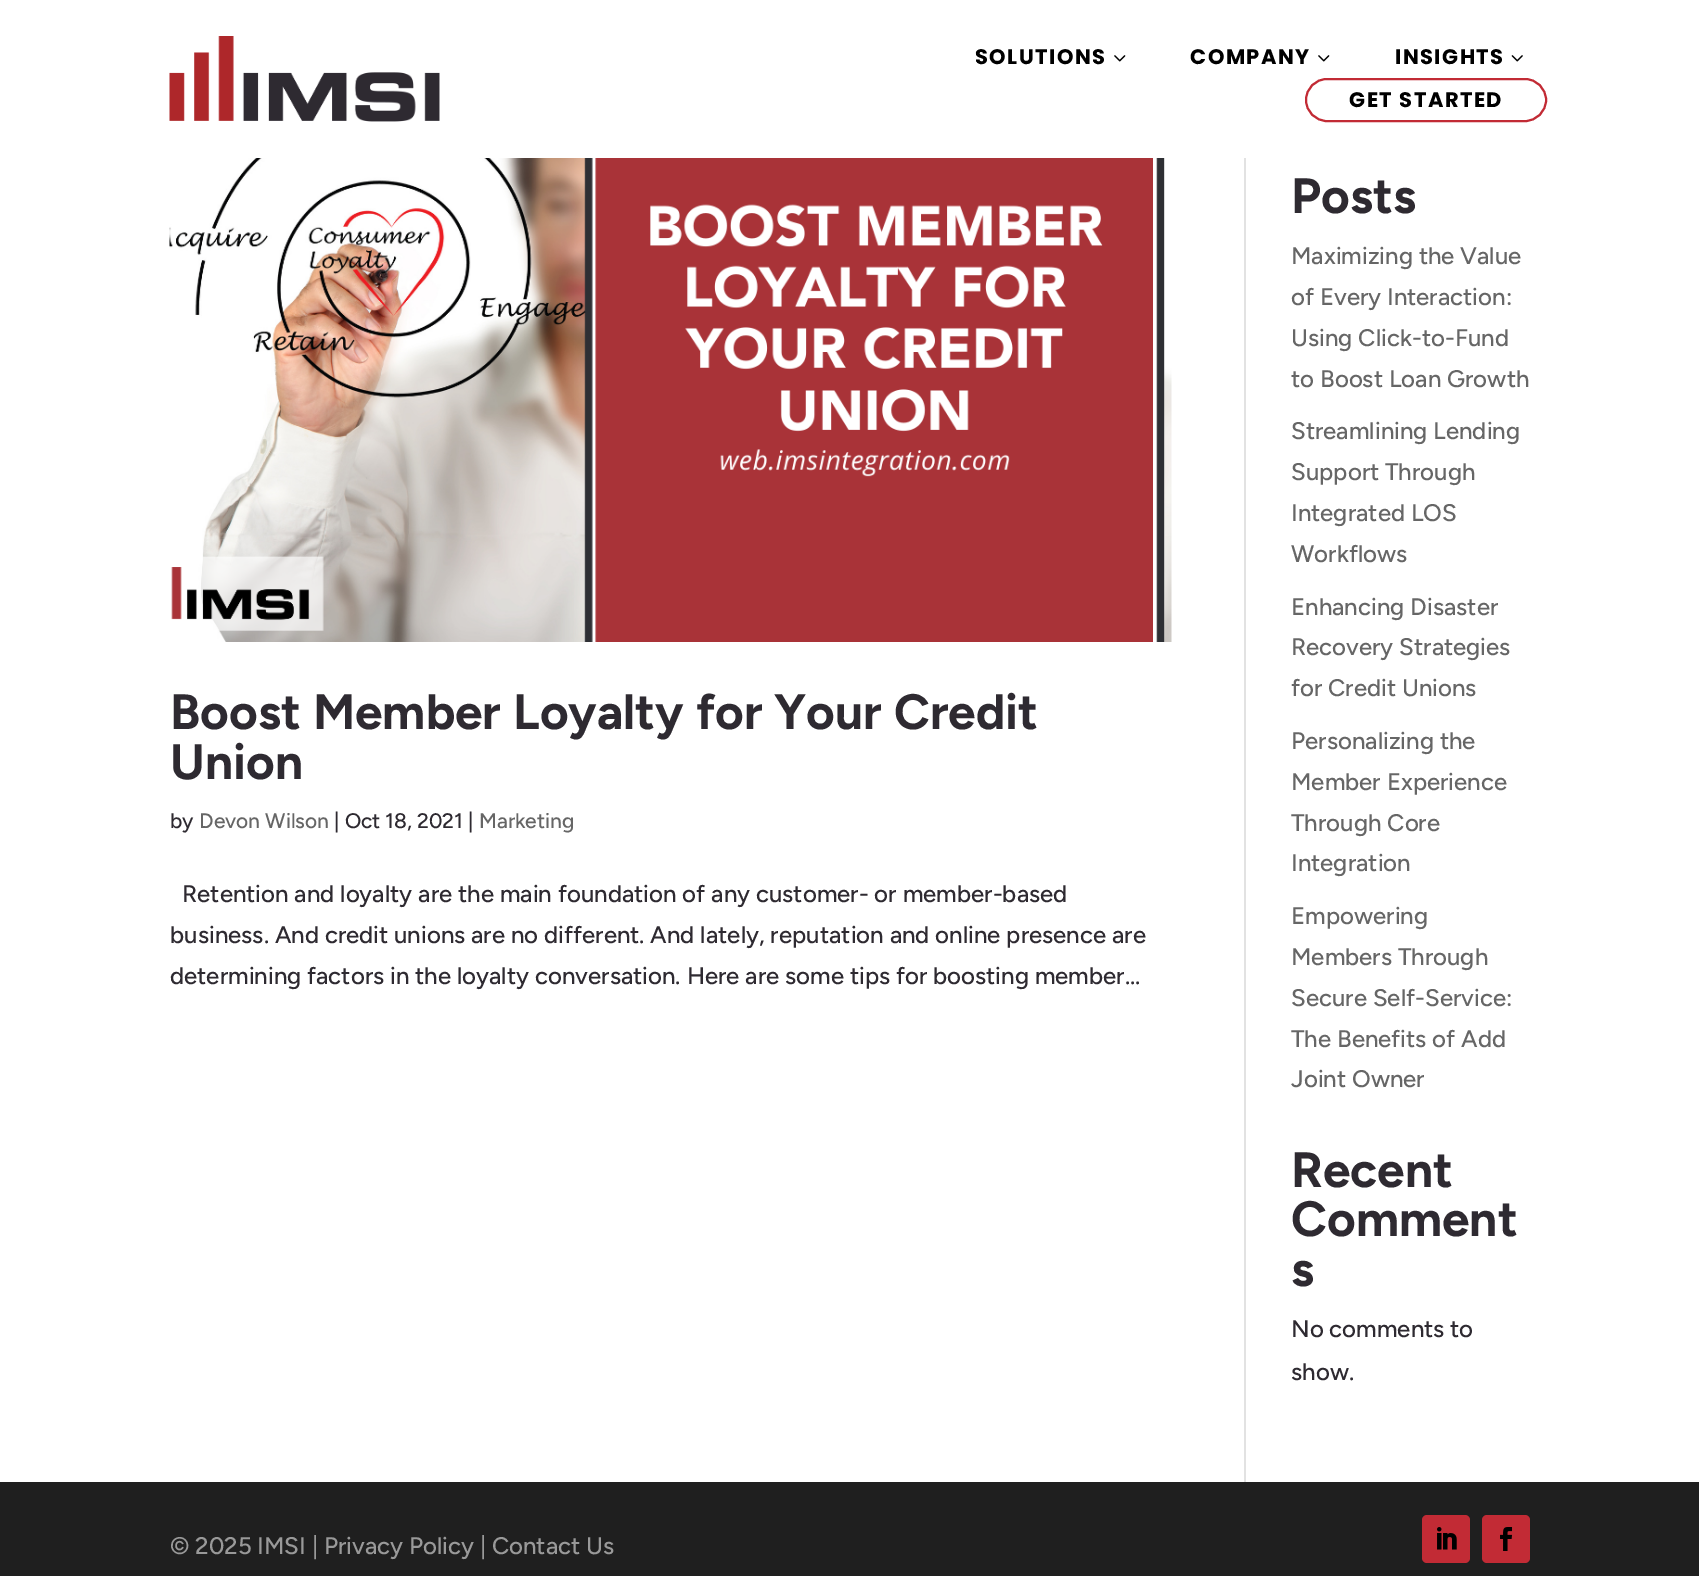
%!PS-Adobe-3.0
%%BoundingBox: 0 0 1699 1576
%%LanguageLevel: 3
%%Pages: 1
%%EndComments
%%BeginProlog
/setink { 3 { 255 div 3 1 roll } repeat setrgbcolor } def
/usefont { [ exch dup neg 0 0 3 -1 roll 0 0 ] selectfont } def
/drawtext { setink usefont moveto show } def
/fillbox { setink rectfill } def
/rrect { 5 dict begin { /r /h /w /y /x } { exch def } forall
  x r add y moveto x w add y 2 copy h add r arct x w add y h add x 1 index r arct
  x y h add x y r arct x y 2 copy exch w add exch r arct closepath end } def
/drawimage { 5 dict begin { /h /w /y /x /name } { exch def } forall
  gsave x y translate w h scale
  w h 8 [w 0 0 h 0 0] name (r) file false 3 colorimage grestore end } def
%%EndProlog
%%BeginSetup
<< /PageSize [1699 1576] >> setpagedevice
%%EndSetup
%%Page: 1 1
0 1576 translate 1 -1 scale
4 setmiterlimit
0 0 1699 1576 255 255 255 fillbox
(assets/img1.rgb) 169 36 271 86 drawimage
/Poppins-Bold 21 usefont
0 0 0 setink
975 64 moveto 1.5 0 (SOLUTIONS) ashow
(assets/img2.rgb) 1114 55 12 7 drawimage
1190 64 moveto 1.5 0 (COMPANY) ashow
(assets/img2.rgb) 1318 55 12 7 drawimage
1395 64 moveto 1.5 0 (INSIGHTS) ashow
(assets/img3.rgb) 1511 55 12 7 drawimage
194 43 53 setink
2 setlinewidth
1306 79 240 42 21 rrect stroke
0 0 0 setink
1349 107 moveto 1.5 0 (GET STARTED) ashow
1244 158 2 1324 226 226 226 fillbox
(assets/img4.rgb) 169 158 1003 484 drawimage
(Boost Member Loyalty for Your Credit) 170 729 /Figtree-Bold 49.5 46 42 49 drawtext
(Union) 170 779 /Figtree-Bold 49.5 46 42 49 drawtext
(by) 170 828 /Figtree-Medium 21 46 42 49 drawtext
(Devon Wilson) 199 828 /Figtree-Medium 21 102 102 102 drawtext
(| Oct 18, 2021 |) 334 828 /Figtree-Medium 21 46 42 49 drawtext
(Marketing) 479 828 /Figtree-Medium 21 102 102 102 drawtext
(Retention and loyalty are the main foundation of any customer- or member-based) 182 902 /Figtree-Medium 24 46 42 49 drawtext
(business. And credit unions are no different. And lately, reputation and online presence are) 170 943 /Figtree-Medium 24 46 42 49 drawtext
(determining factors in the loyalty conversation. Here are some tips for boosting member...) 170 984 /Figtree-Medium 24 46 42 49 drawtext
(Posts) 1291 213 /Figtree-Bold 49.5 46 42 49 drawtext
(Maximizing the Value) 1291 264 /Figtree-Medium 24 102 102 102 drawtext
(of Every Interaction:) 1291 305 /Figtree-Medium 24 102 102 102 drawtext
(Using Click-to-Fund) 1291 346 /Figtree-Medium 24 102 102 102 drawtext
(to Boost Loan Growth) 1291 387 /Figtree-Medium 24 102 102 102 drawtext
(Streamlining Lending) 1291 439 /Figtree-Medium 24 102 102 102 drawtext
(Support Through) 1291 480 /Figtree-Medium 24 102 102 102 drawtext
(Integrated LOS) 1291 521 /Figtree-Medium 24 102 102 102 drawtext
(Workflows) 1291 562 /Figtree-Medium 24 102 102 102 drawtext
(Enhancing Disaster) 1291 615 /Figtree-Medium 24 102 102 102 drawtext
(Recovery Strategies) 1291 655 /Figtree-Medium 24 102 102 102 drawtext
(for Credit Unions) 1291 696 /Figtree-Medium 24 102 102 102 drawtext
(Personalizing the) 1291 749 /Figtree-Medium 24 102 102 102 drawtext
(Member Experience) 1291 790 /Figtree-Medium 24 102 102 102 drawtext
(Through Core) 1291 831 /Figtree-Medium 24 102 102 102 drawtext
(Integration) 1291 871 /Figtree-Medium 24 102 102 102 drawtext
(Empowering) 1291 924 /Figtree-Medium 24 102 102 102 drawtext
(Members Through) 1291 965 /Figtree-Medium 24 102 102 102 drawtext
(Secure Self-Service:) 1291 1006 /Figtree-Medium 24 102 102 102 drawtext
(The Benefits of Add) 1291 1047 /Figtree-Medium 24 102 102 102 drawtext
(Joint Owner) 1291 1087 /Figtree-Medium 24 102 102 102 drawtext
(Recent) 1291 1187 /Figtree-Bold 49.5 46 42 49 drawtext
(Comment) 1291 1236 /Figtree-Bold 49.5 46 42 49 drawtext
(s) 1291 1286 /Figtree-Bold 49.5 46 42 49 drawtext
(No comments to) 1291 1337 /Figtree-Medium 24 46 42 49 drawtext
(show.) 1291 1380 /Figtree-Medium 24 46 42 49 drawtext
0 1482 1699 94 31 31 31 fillbox
(© 2025 IMSI | Privacy Policy | Contact Us) 170 1554 /Figtree-Medium 24 153 153 153 drawtext
194 43 53 setink
1422 1515 48 48 5 rrect fill
(assets/img5.rgb) 1437 1527 20 23 drawimage
1482 1515 48 48 5 rrect fill
(assets/img6.rgb) 1500 1527 13 24 drawimage
showpage
%%EOF
